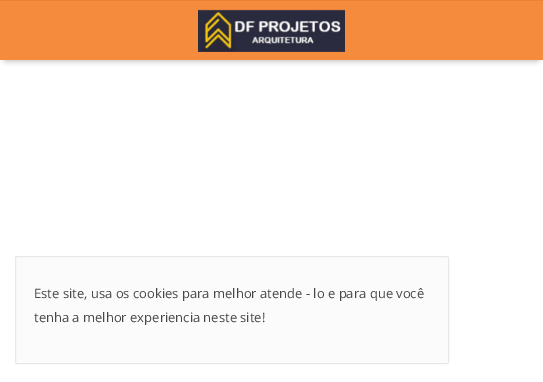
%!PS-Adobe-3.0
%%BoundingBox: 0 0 543 382
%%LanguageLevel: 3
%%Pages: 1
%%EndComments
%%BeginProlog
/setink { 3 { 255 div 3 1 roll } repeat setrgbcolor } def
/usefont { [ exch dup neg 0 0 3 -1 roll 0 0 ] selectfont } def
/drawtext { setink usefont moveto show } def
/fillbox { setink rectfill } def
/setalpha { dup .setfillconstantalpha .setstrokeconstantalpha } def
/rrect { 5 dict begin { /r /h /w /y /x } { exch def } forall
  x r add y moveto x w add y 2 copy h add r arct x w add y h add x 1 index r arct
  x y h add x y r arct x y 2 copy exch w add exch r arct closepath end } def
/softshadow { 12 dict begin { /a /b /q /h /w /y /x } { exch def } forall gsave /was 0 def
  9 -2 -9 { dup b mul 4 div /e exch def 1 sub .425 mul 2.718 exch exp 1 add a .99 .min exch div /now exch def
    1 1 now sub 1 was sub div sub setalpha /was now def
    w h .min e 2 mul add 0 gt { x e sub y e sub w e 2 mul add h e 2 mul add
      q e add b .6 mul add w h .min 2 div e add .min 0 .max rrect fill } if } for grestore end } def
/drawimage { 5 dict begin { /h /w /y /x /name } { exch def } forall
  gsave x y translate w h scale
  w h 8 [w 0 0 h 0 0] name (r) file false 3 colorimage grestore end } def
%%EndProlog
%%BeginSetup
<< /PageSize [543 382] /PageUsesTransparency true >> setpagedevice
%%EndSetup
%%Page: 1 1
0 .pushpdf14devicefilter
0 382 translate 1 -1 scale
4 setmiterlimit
0 0 543 382 255 255 255 fillbox
0 0 0 setink
6 11 531 48 0 3.5 0.5 softshadow
0 1 543 59 244 139 61 fillbox
0 0 543 1 232 132 58 fillbox
(assets/img1.rgb) 198 9 147 43 drawimage
251 251 252 setink
15.5 256.5 433 107 1.5 rrect gsave fill grestore
232 232 234 setink
stroke
(Este site, usa os cookies para melhor atende - lo e para que você) 34 298 /OpenSans-Regular 13 71 71 71 drawtext
(tenha a melhor experiencia neste site!) 34 322 /OpenSans-Regular 13 71 71 71 drawtext
.poppdf14devicefilter showpage
%%EOF
